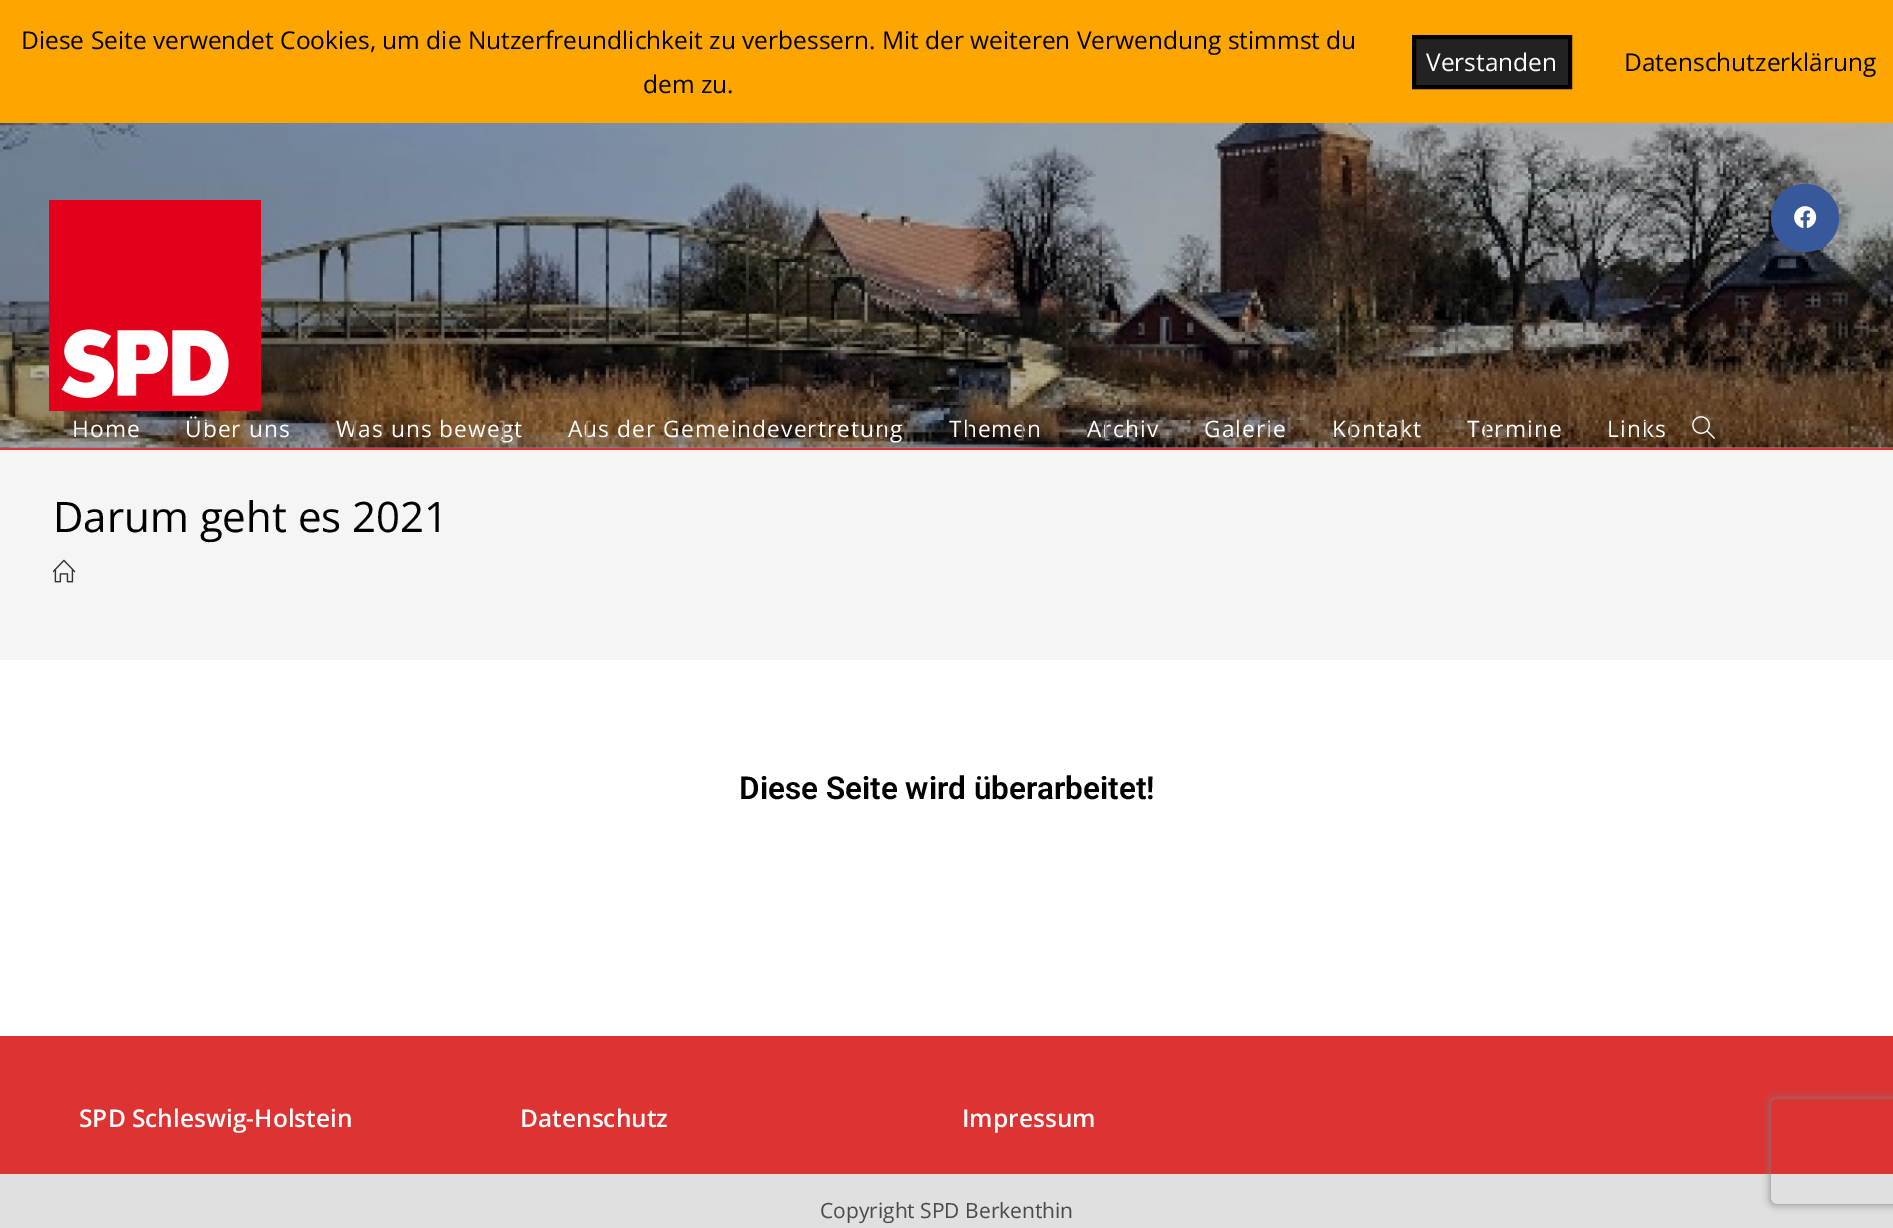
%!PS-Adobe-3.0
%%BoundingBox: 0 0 1893 1228
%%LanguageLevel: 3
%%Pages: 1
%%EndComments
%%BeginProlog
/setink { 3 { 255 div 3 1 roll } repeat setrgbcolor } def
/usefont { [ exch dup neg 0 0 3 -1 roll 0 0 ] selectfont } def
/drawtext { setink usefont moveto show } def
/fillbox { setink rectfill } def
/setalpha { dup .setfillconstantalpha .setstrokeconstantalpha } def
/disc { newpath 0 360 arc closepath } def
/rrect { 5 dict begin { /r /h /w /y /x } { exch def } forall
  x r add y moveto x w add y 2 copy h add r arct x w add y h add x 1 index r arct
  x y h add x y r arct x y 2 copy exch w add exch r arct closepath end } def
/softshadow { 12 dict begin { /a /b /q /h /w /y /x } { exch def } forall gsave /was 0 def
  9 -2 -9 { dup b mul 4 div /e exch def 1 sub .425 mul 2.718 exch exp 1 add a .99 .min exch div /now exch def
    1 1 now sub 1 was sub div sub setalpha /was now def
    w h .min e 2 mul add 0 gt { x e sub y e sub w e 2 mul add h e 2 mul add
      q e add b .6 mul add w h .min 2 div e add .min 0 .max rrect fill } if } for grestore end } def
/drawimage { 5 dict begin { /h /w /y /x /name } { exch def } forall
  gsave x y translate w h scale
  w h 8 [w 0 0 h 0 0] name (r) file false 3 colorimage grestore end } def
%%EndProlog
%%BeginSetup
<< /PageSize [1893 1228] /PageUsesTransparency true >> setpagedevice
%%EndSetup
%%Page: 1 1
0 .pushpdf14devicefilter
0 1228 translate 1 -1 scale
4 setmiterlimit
0 0 1893 1228 255 255 255 fillbox
0 0 1893 123 255 165 0 fillbox
(Diese Seite verwendet Cookies, um die Nutzerfreundlichkeit zu verbessern. Mit der weiteren Verwendung stimmst du) 21 49 /OpenSans-Regular 24.5 0 0 0 drawtext
(dem zu.) 643 93 /OpenSans-Regular 24.5 0 0 0 drawtext
34 34 34 setink
1414 37 moveto 1570 37 lineto 1570 87 lineto 1414 87 lineto closepath gsave fill grestore
0 0 0 setink
4 setlinewidth
stroke
(Verstanden) 1426 71 /OpenSans-Regular 24.5 255 255 255 drawtext
(Datenschutzerklärung) 1624 71 /OpenSans-Regular 24.5 0 0 0 drawtext
(assets/img1.rgb) 0 123 1893 325 drawimage
0 448 1893 2 221 51 51 fillbox
(assets/img2.rgb) 49 200 212 211 drawimage
55 88 155 setink
1805 218 34 disc fill
(assets/img3.rgb) 1794 206 23 22 drawimage
/OpenSans-Regular 22.75 usefont
255 255 255 setink
72 437 moveto 1.05 0 (Home) ashow
185 437 moveto 1.05 0 (Über uns) ashow
120 103 88 setink
201 437 moveto 1.05 0 ([) ashow
255 255 255 setink
336 437 moveto 1.05 0 (Was uns bewegt) ashow
131 108 85 setink
352 437 moveto 1.05 0 ([) ashow
170 152 134 setink
499 437 moveto 1.05 0 (]) ashow
255 255 255 setink
568 437 moveto 1.05 0 (Aus der Gemeindevertretung) ashow
163 138 111 setink
584 437 moveto 1.05 0 ([) ashow
82 62 44 setink
879 437 moveto 1.05 0 (]) ashow
255 255 255 setink
949 437 moveto 1.05 0 (Themen) ashow
60 51 45 setink
965 437 moveto 1.05 0 ([) ashow
105 92 81 setink
1018 437 moveto 1.05 0 (]) ashow
255 255 255 setink
1087 437 moveto 1.05 0 (Archiv) ashow
121 117 117 setink
1103 437 moveto 1.05 0 ([) ashow
255 255 255 setink
1204 437 moveto 1.05 0 (Galerie) ashow
105 92 81 setink
1263 437 moveto 1.05 0 (]) ashow
255 255 255 setink
1332 437 moveto 1.05 0 (Kontakt) ashow
131 113 96 setink
1348 437 moveto 1.05 0 ([) ashow
149 133 119 setink
1397 437 moveto 1.05 0 (]) ashow
255 255 255 setink
1467 437 moveto 1.05 0 (Termine) ashow
121 99 78 setink
1483 437 moveto 1.05 0 ([) ashow
93 71 51 setink
1538 437 moveto 1.05 0 (]) ashow
255 255 255 setink
1607 437 moveto 1.05 0 (Links) ashow
115 90 69 setink
1642 437 moveto 1.05 0 (]) ashow
(assets/img4.rgb) 1692 416 23 23 drawimage
0 450 1893 210 245 245 245 fillbox
(Darum geht es 2021) 53 532 /OpenSans-Regular 42 0 0 0 drawtext
(assets/img5.rgb) 53 559 23 24 drawimage
(Diese Seite wird überarbeitet!) 739 799 /Roboto-SemiBold 31.5 0 0 0 drawtext
0 1036 1893 138 221 51 51 fillbox
(SPD Schleswig-Holstein) 79 1127 /OpenSans-SemiBold 24.5 255 255 255 drawtext
(Datenschutz) 520 1127 /OpenSans-SemiBold 24.5 255 255 255 drawtext
(Impressum) 962 1127 /OpenSans-SemiBold 24.5 255 255 255 drawtext
0 1174 1893 54 224 224 224 fillbox
(Copyright SPD Berkenthin) 820 1218 /OpenSans-Regular 21 74 74 74 drawtext
gsave
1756 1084 moveto 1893 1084 lineto 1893 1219 lineto 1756 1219 lineto closepath 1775 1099 moveto 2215 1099 lineto 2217 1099 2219 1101 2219 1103 curveto 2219 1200 lineto 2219 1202 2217 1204 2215 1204 curveto 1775 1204 lineto 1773 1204 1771 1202 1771 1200 curveto 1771 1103 lineto 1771 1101 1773 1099 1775 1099 curveto closepath eoclip newpath
128 128 128 setink
1771 1099 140 105 4 4.5 1 softshadow
grestore
.poppdf14devicefilter showpage
%%EOF
